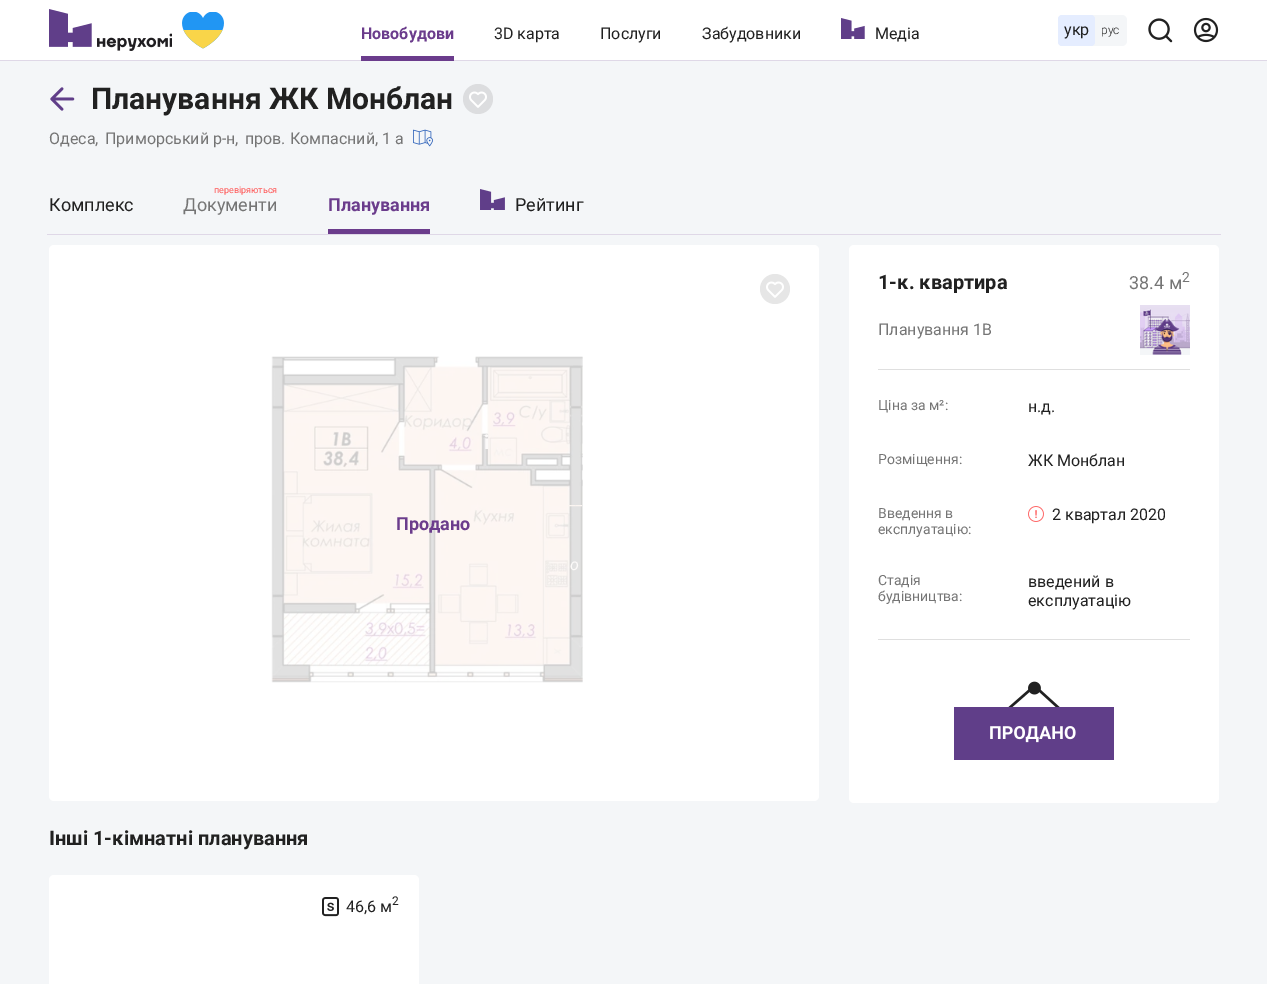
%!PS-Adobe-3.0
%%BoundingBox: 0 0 1267 984
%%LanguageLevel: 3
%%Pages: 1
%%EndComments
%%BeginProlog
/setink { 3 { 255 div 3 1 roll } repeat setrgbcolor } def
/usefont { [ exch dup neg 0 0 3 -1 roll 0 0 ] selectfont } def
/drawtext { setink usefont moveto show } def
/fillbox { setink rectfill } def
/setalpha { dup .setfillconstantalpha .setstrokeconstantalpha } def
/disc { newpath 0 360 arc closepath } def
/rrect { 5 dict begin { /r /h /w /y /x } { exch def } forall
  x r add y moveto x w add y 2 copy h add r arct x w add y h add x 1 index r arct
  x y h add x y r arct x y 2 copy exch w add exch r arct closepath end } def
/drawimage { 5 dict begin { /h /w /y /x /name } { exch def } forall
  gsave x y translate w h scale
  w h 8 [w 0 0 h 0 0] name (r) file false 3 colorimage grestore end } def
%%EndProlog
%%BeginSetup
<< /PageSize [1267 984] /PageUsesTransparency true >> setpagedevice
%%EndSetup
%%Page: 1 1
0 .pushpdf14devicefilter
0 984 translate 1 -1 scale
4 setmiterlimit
0 0 1267 984 244 246 248 fillbox
0 0 1267 60 255 255 255 fillbox
0 60 1267 1 223 216 231 fillbox
(assets/img1.rgb) 49 9 123 42 drawimage
(assets/img2.rgb) 182 12 42 37 drawimage
(Новобудови) 361 39 /Roboto-Bold 16 107 60 140 drawtext
361 56 93 5 107 60 140 fillbox
(3D карта) 494 39 /Roboto-Regular 16 33 33 33 drawtext
(Послуги) 600 39 /Roboto-Regular 16 33 33 33 drawtext
(Забудовники) 702 39 /Roboto-Regular 16 33 33 33 drawtext
(assets/img3.rgb) 841 18 24 21 drawimage
(Медіа) 875 39 /Roboto-Regular 16 33 33 33 drawtext
244 246 248 setink
1058 15 69 31 5 rrect fill
229 237 255 setink
1058 15 37 31 4 rrect fill
(укр) 1064 35 /Roboto-Regular 16 33 33 33 drawtext
(рус) 1101 34 /Roboto-Light 12 33 33 33 drawtext
(assets/img4.rgb) 1148 18 25 25 drawimage
(assets/img5.rgb) 1193 17 26 26 drawimage
(assets/img6.rgb) 50 87 25 24 drawimage
(Планування ЖК Монблан) 91 109 /Roboto-Bold 30 33 33 33 drawtext
220 221 223 setink
478 99 15 disc fill
(assets/img7.rgb) 469 91 18 17 drawimage
(Одеса,) 49 144 /Roboto-Regular 16 117 117 117 drawtext
(Приморський р-н,) 105 144 /Roboto-Regular 16 117 117 117 drawtext
(пров. Компасний, 1 а) 245 144 /Roboto-Regular 16 117 117 117 drawtext
(assets/img8.rgb) 413 129 20 18 drawimage
47 234 1174 1 223 216 231 fillbox
(Комплекс) 49 211 /Roboto-Regular 18 33 33 33 drawtext
(перевіряються) 214 193 /Roboto-Regular 9 255 82 82 drawtext
(Документи) 183 211 /Roboto-Regular 18 117 117 117 drawtext
(Планування) 328 211 /Roboto-Bold 18 107 60 140 drawtext
328 229 102 5 107 60 140 fillbox
(assets/img9.rgb) 480 189 25 21 drawimage
(Рейтинг) 515 211 /Roboto-Regular 18 33 33 33 drawtext
255 255 255 setink
49 245 770 556 5 rrect fill
(assets/img11.rgb) 271 356 312 327 drawimage
0.8 setalpha
78 274 712 498 5 rrect fill
1 setalpha
230 230 230 setink
775 289 15 disc fill
(assets/img10.rgb) 766 281 18 17 drawimage
(Продано) 396 530 /Roboto-Bold 18 107 60 140 drawtext
255 255 255 setink
849 245 370 558 5 rrect fill
(1-к. квартира) 878 289 /Roboto-Bold 20 33 33 33 drawtext
(38.4 м) 1129 289 /Roboto-Regular 18 117 117 117 drawtext
(2) 1182 282 /Roboto-Regular 14 117 117 117 drawtext
(Планування 1В) 878 335 /Roboto-Regular 16 117 117 117 drawtext
(assets/img12.rgb) 1140 305 50 50 drawimage
878 369 312 1 223 223 223 fillbox
(Ціна за м²:) 878 410 /Roboto-Regular 14 117 117 117 drawtext
(н.д.) 1028 412 /Roboto-Regular 16 33 33 33 drawtext
(Розміщення:) 878 464 /Roboto-Regular 14 117 117 117 drawtext
(ЖК Монблан) 1028 466 /Roboto-Regular 16 33 33 33 drawtext
(Введення в) 878 518 /Roboto-Regular 14 117 117 117 drawtext
(експлуатацію:) 878 534 /Roboto-Regular 14 117 117 117 drawtext
(assets/img13.rgb) 1028 506 16 16 drawimage
(2 квартал 2020) 1052 520 /Roboto-Regular 16 33 33 33 drawtext
(Стадія) 878 585 /Roboto-Regular 14 117 117 117 drawtext
(будівництва:) 878 601 /Roboto-Regular 14 117 117 117 drawtext
(введений в) 1028 587 /Roboto-Regular 16 33 33 33 drawtext
(експлуатацію) 1028 606 /Roboto-Regular 16 33 33 33 drawtext
878 639 312 1 223 223 223 fillbox
(assets/img14.rgb) 954 681 160 79 drawimage
(і) 484 449 /Roboto-Bold 20 252 250 249 drawtext
(Інші 1-кімнатні планування) 49 845 /Roboto-Bold 20 33 33 33 drawtext
255 255 255 setink
49 875 370 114 5 rrect fill
(assets/img15.rgb) 322 897 17 20 drawimage
(46,6 м) 346 912 /Roboto-Regular 16 33 33 33 drawtext
(2) 392 905 /Roboto-Regular 12 33 33 33 drawtext
(__) 569 505 /Roboto-Italic 16 251 245 241 drawtext
(о) 570 570 /Roboto-Italic 16 252 250 249 drawtext
.poppdf14devicefilter showpage
%%EOF
